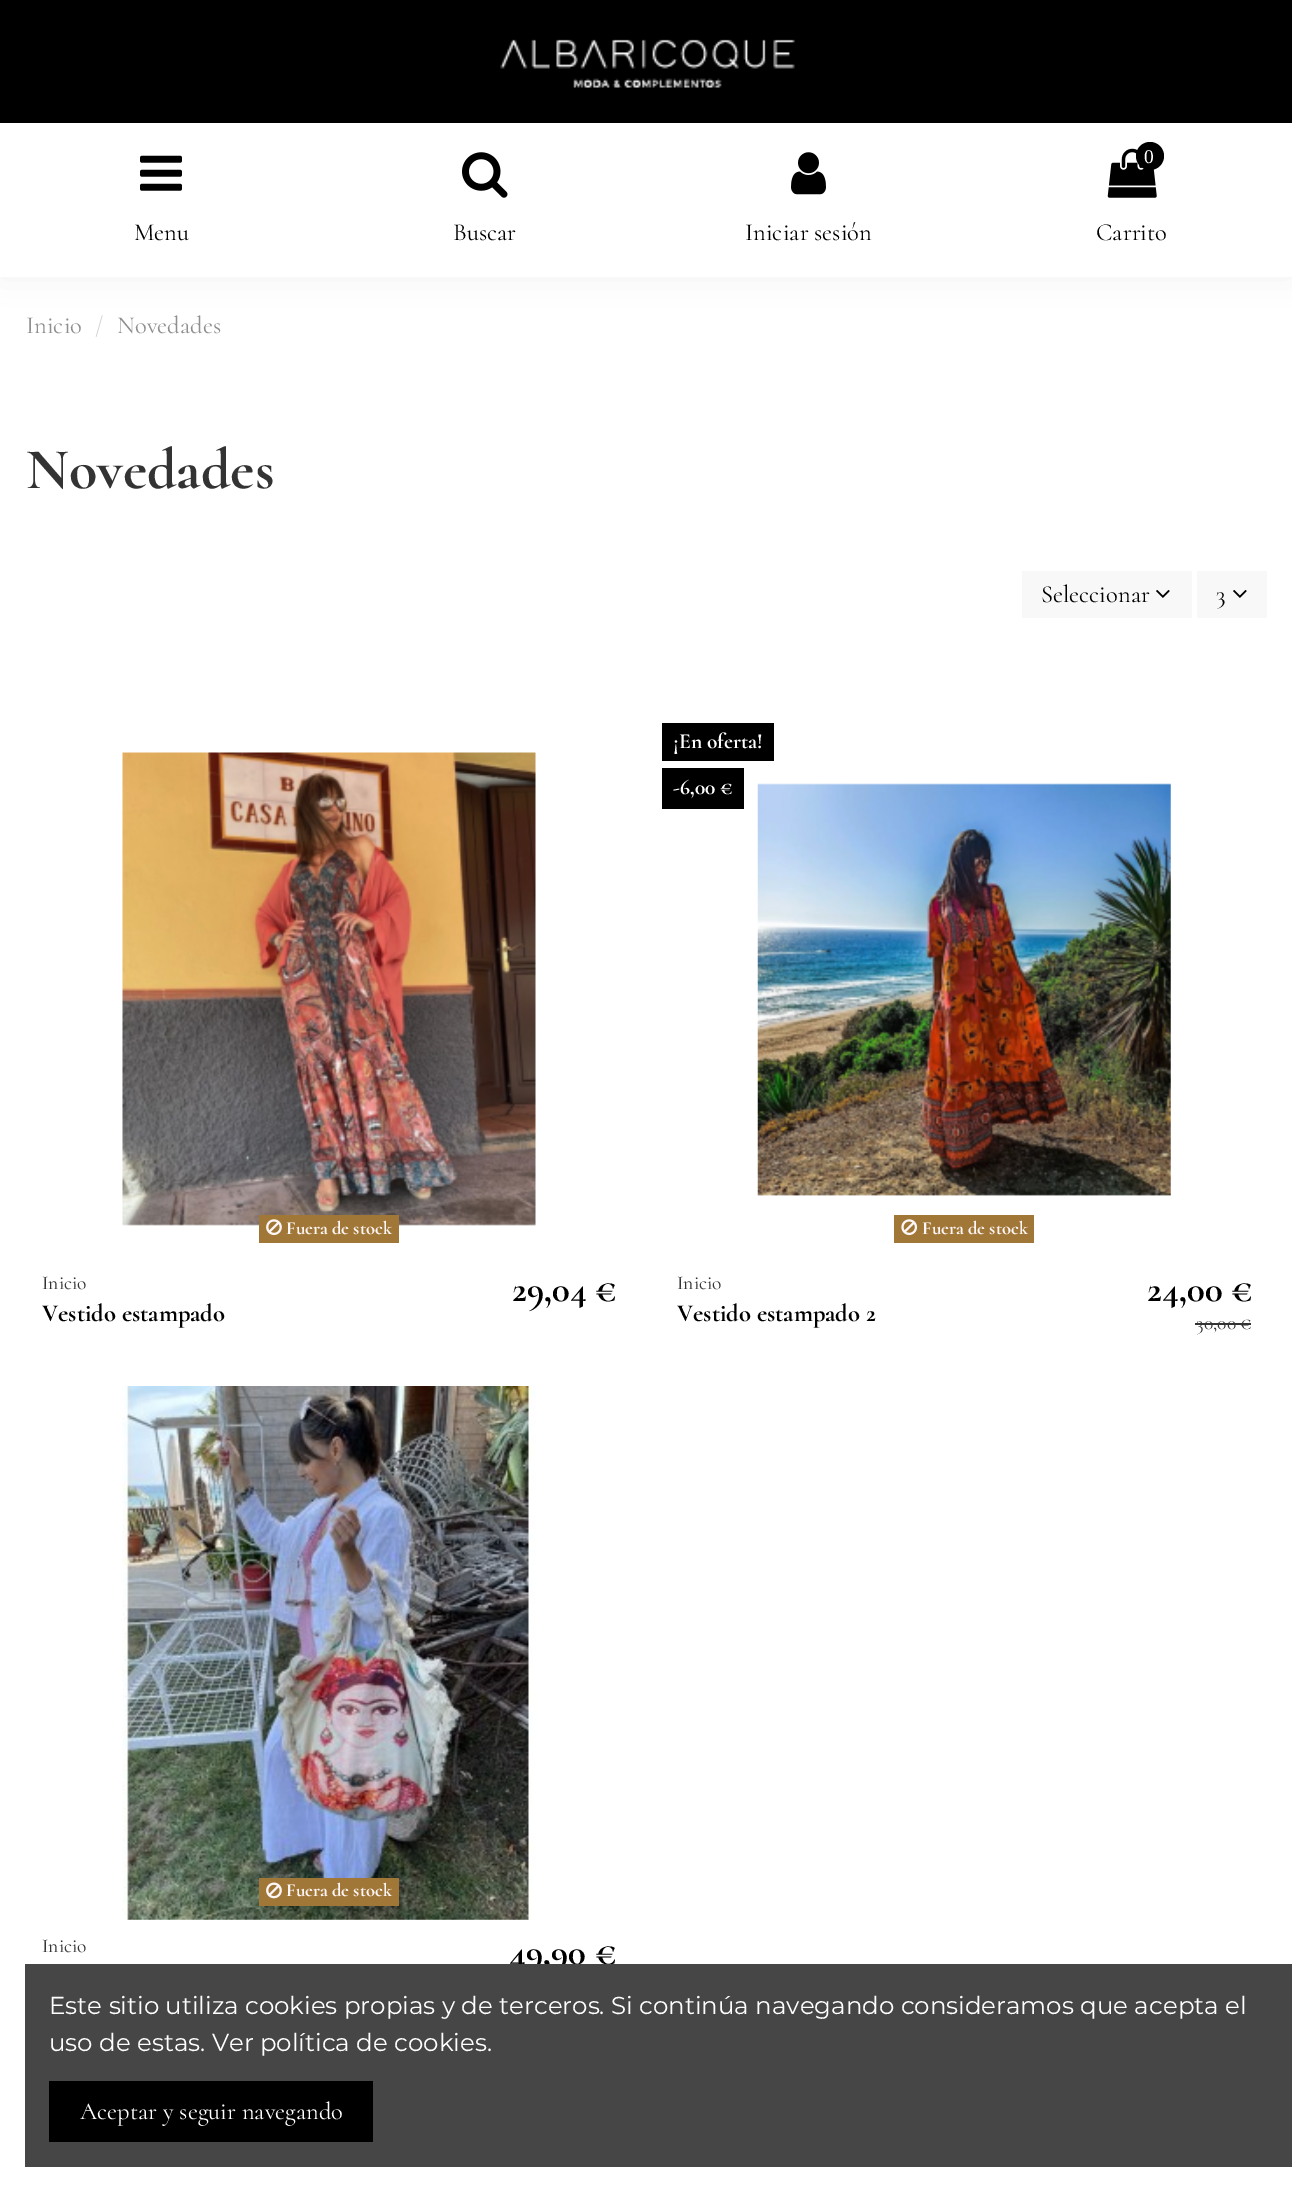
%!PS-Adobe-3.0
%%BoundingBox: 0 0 1292 2190
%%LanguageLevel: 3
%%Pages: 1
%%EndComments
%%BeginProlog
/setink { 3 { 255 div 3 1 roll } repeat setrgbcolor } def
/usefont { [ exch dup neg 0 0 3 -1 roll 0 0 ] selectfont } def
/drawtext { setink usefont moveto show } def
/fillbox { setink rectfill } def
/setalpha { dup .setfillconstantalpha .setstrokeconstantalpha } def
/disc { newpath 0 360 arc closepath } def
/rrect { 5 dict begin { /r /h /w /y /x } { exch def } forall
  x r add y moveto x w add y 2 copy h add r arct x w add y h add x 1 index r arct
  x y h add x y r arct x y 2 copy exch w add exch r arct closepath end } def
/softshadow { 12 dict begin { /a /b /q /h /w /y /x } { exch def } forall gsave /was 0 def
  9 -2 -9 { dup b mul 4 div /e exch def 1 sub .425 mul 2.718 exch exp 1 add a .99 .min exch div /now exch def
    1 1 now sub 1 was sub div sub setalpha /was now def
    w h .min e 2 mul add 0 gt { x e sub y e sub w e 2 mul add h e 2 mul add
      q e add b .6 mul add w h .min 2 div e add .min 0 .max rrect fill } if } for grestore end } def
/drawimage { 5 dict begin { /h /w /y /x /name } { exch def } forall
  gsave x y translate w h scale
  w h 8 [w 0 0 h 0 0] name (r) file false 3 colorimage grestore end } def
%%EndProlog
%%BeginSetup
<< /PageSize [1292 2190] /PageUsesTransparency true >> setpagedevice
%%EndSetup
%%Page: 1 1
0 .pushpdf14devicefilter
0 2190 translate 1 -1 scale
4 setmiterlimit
0 0 1292 2190 255 255 255 fillbox
0 0 0 setink
0 0 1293 277 0 17.5 0.05 softshadow
0 0 1292 123 0 0 0 fillbox
(assets/img1.rgb) 500 39 295 49 drawimage
0 123 1292 154 255 255 255 fillbox
(assets/img2.rgb) 140 155 42 36 drawimage
(Menu) 134 240 /Cormorant-Regular 24.5 0 0 0 drawtext
(assets/img3.rgb) 462 152 46 46 drawimage
(Buscar) 453 240 /Cormorant-Regular 24.5 0 0 0 drawtext
(assets/img4.rgb) 791 152 35 43 drawimage
(Iniciar sesión) 745 240 /Cormorant-Regular 24.5 0 0 0 drawtext
(assets/img5.rgb) 1107 148 50 50 drawimage
1150 156 14 disc fill
(0) 1144 163 /LiberationSerif-Regular 19.5 255 255 255 drawtext
(Carrito) 1096 240 /Cormorant-Regular 24.5 0 0 0 drawtext
(Inicio) 26 333 /Cormorant-Regular 24.5 143 143 143 drawtext
(/) 95 333 /Cormorant-Regular 24.5 210 210 210 drawtext
(Novedades) 117 333 /Cormorant-Regular 24.5 143 143 143 drawtext
(Novedades) 26 488 /Cormorant-Bold 58 51 51 51 drawtext
1022 571 170 47 248 248 248 fillbox
(Seleccionar) 1041 602 /Cormorant-Regular 24.5 0 0 0 drawtext
(assets/img6.rgb) 1156 590 14 8 drawimage
1197 571 70 47 248 248 248 fillbox
(3) 1216 602 /Cormorant-Regular 24.5 0 0 0 drawtext
(assets/img6.rgb) 1233 590 14 8 drawimage
(assets/img7.rgb) 122 752 414 474 drawimage
259 1215 140 28 161 119 56 fillbox
(assets/img8.rgb) 266 1219 16 16 drawimage
(Fuera de stock) 286 1234 /Cormorant-Bold 18.5 255 247 247 drawtext
(Inicio) 42 1289 /Cormorant-Regular 19.5 51 51 51 drawtext
(Vestido estampado) 42 1321 /Cormorant-Bold 24.5 0 0 0 drawtext
(29,04 €) 512 1301 /Cormorant-Bold 37 0 0 0 drawtext
662 723 112 38 0 0 0 fillbox
(¡En oferta!) 673 748 /Cormorant-Bold 21.5 255 255 255 drawtext
662 768 82 41 0 0 0 fillbox
(-6,00 €) 673 794 /Cormorant-Bold 21.5 255 255 255 drawtext
(assets/img9.rgb) 757 783 414 413 drawimage
894 1215 140 28 161 119 56 fillbox
(assets/img10.rgb) 901 1219 17 17 drawimage
(Fuera de stock) 922 1234 /Cormorant-Bold 18.5 255 247 247 drawtext
(Inicio) 677 1289 /Cormorant-Regular 19.5 51 51 51 drawtext
(Vestido estampado 2) 677 1321 /Cormorant-Bold 24.5 0 0 0 drawtext
(24,00 €) 1147 1301 /Cormorant-Bold 37 0 0 0 drawtext
(30,00 €) 1196 1329 /Cormorant-Regular 19.5 51 51 51 drawtext
1195 1323 56 2 51 51 51 fillbox
(assets/img11.rgb) 122 1386 414 534 drawimage
259 1878 140 28 161 119 56 fillbox
(assets/img12.rgb) 266 1882 16 17 drawimage
(Fuera de stock) 286 1896 /Cormorant-Bold 18.5 255 247 247 drawtext
(Inicio) 42 1952 /Cormorant-Regular 19.5 51 51 51 drawtext
(49,90 €) 509 1964 /Cormorant-Bold 37 0 0 0 drawtext
25 1964 1267 203 70 70 70 fillbox
(Este sitio utiliza cookies propias y de terceros. Si continúa navegando consideramos que acepta el) 49 2014 /Montserrat-Regular 24.5 255 255 255 drawtext
(uso de estas. Ver política de cookies.) 49 2051 /Montserrat-Regular 24.5 255 255 255 drawtext
49 2081 324 61 0 0 0 fillbox
(Aceptar y seguir navegando) 80 2119 /Cormorant-Regular 24.5 255 255 255 drawtext
.poppdf14devicefilter showpage
%%EOF
